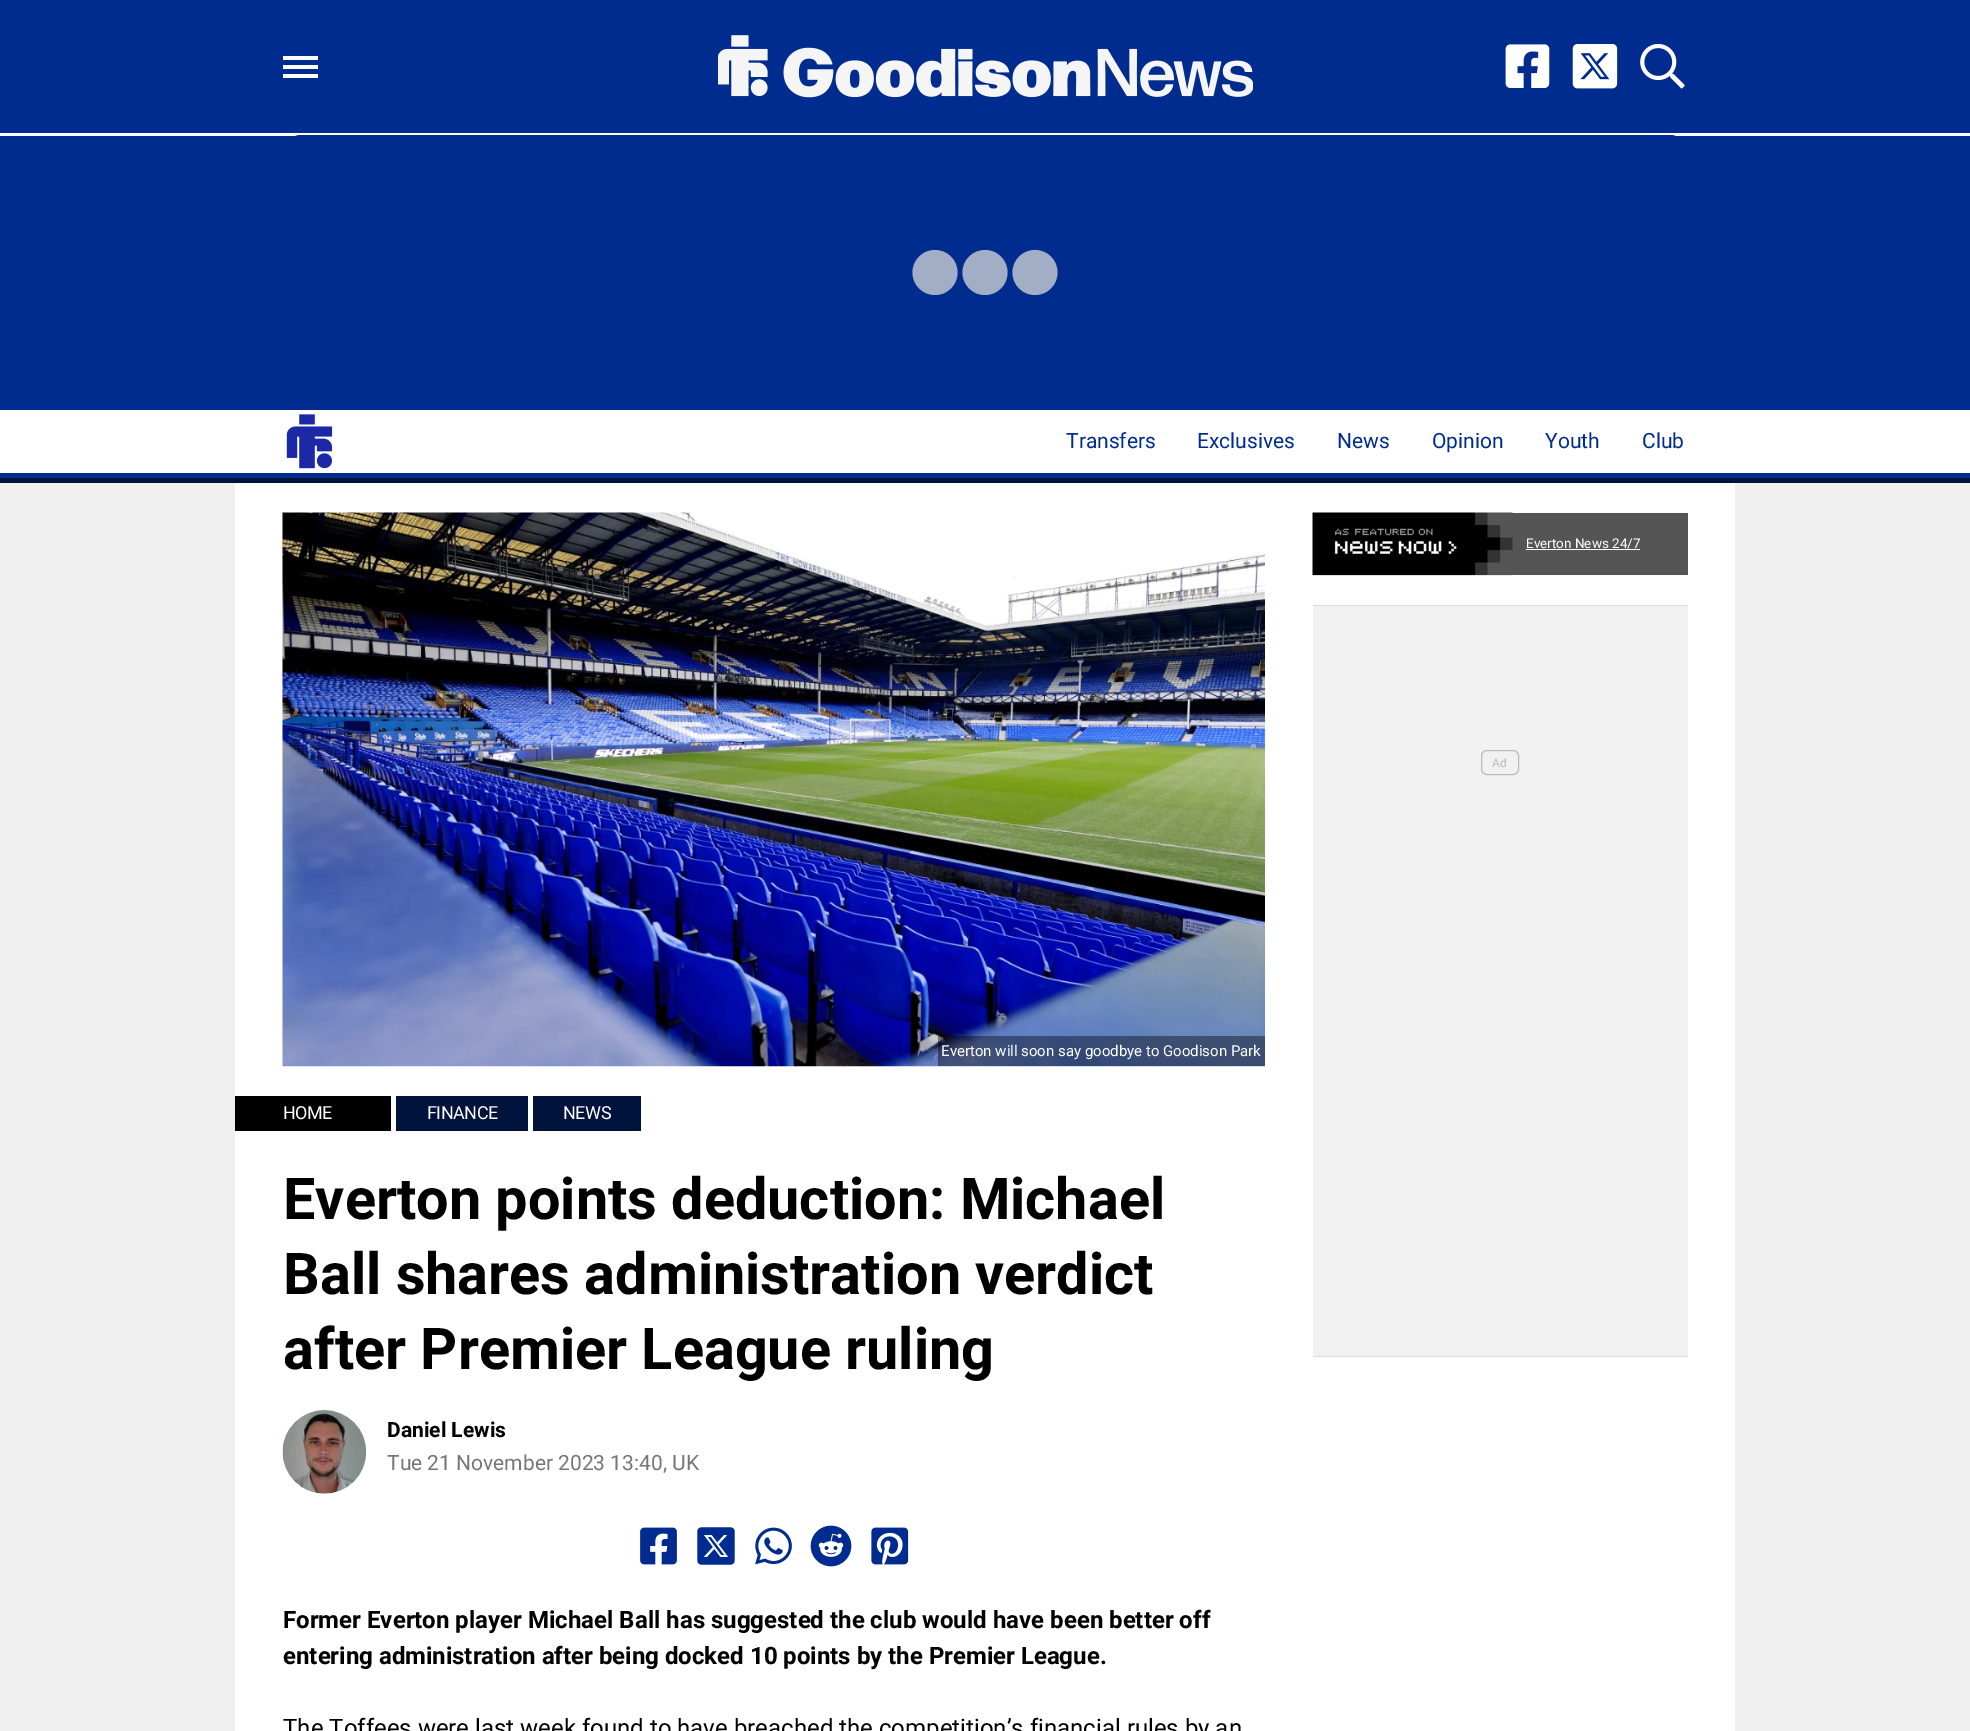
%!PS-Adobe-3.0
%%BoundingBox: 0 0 1970 1731
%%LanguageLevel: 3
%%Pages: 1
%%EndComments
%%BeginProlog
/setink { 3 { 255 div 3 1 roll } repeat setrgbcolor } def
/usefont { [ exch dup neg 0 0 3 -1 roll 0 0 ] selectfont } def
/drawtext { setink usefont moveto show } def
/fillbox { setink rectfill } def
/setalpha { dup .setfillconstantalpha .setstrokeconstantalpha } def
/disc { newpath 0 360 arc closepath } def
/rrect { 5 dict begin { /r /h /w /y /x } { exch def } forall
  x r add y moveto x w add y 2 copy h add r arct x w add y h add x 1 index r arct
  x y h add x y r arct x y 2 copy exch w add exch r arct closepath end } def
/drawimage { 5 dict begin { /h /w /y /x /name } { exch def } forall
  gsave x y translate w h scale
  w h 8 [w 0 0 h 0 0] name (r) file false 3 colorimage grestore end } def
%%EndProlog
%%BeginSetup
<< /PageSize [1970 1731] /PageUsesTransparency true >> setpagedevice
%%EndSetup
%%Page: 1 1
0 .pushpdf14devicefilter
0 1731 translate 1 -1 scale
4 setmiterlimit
0 0 1970 1731 240 240 240 fillbox
0 0 1970 410 0 44 143 fillbox
0 478 1970 5 0 19 61 fillbox
283 56 35 4 255 255 255 fillbox
283 65 35 4 255 255 255 fillbox
283 74 35 4 255 255 255 fillbox
(assets/img1.rgb) 718 35 535 63 drawimage
(assets/img2.rgb) 1505 44 45 44 drawimage
(assets/img3.rgb) 1572 44 46 45 drawimage
(assets/img4.rgb) 1640 43 45 46 drawimage
0 133 1970 3 255 255 255 fillbox
0 44 143 setink
283 135 1405 275 18 rrect fill
162 173 198 setink
985 272.5 22.5 disc fill
935 272.5 22.5 disc fill
1035 272.5 22.5 disc fill
0 410 1970 63 255 255 255 fillbox
0 473 1970 5 0 44 143 fillbox
(assets/img5.rgb) 286 414 47 55 drawimage
(Transfers) 1066 448 /Roboto-Regular 21 0 44 143 drawtext
(Exclusives) 1197 448 /Roboto-Regular 21 0 44 143 drawtext
(News) 1337 448 /Roboto-Regular 21 0 44 143 drawtext
(Opinion) 1432 448 /Roboto-Regular 21 0 44 143 drawtext
(Youth) 1545 448 /Roboto-Regular 21 0 44 143 drawtext
(Club) 1642 448 /Roboto-Regular 21 0 44 143 drawtext
235 483 1500 1248 255 255 255 fillbox
1313 513 375 62 85 85 85 fillbox
(assets/img6.rgb) 1312 512 201 64 drawimage
(Everton News 24/7) 1526 548 /Roboto-Regular 13.5 255 255 255 drawtext
1526 549 114 1 255 255 255 fillbox
1313 606 375 750 241 241 241 fillbox
1313 605 375 1 221 221 221 fillbox
1313 1356 375 1 221 221 221 fillbox
187 187 187 setink
1481.5 750.5 37 24 5.5 rrect stroke
(Ad) 1492 767 /Roboto-Regular 12 187 187 187 drawtext
(assets/img7.rgb) 282 512 983 555 drawimage
0.4 setalpha
938 1036 327 30 0 0 0 fillbox
1 setalpha
(Everton will soon say goodbye to Goodison Park) 941 1056 /Roboto-Regular 15 255 255 255 drawtext
235 1096 156 35 0 0 0 fillbox
/Roboto-Regular 18 usefont
255 255 255 setink
283 1119 moveto -0.5 0 (HOME) ashow
396 1096 132 35 0 19 61 fillbox
255 255 255 setink
427 1119 moveto -0.5 0 (FINANCE) ashow
533 1096 108 35 0 19 61 fillbox
255 255 255 setink
563 1119 moveto -0.5 0 (NEWS) ashow
(Everton points deduction: Michael) 283 1219 /Roboto-Bold 57.6 0 0 0 drawtext
(Ball shares administration verdict) 283 1294 /Roboto-Bold 57.6 0 0 0 drawtext
(after Premier League ruling) 283 1369 /Roboto-Bold 57.6 0 0 0 drawtext
(assets/img8.rgb) 282 1410 85 84 drawimage
(Daniel Lewis) 387 1437 /Roboto-Bold 21 0 0 0 drawtext
(Tue 21 November 2023 13:40, UK) 387 1470 /Roboto-Regular 21 118 118 118 drawtext
(assets/img9.rgb) 640 1527 37 38 drawimage
(assets/img10.rgb) 697 1527 38 38 drawimage
(assets/img11.rgb) 755 1527 37 38 drawimage
(assets/img12.rgb) 810 1525 42 42 drawimage
(assets/img13.rgb) 871 1527 38 38 drawimage
(Former Everton player Michael Ball has suggested the club would have been better off) 283 1628 /Roboto-Bold 24 0 0 0 drawtext
(entering administration after being docked 10 points by the Premier League.) 283 1664 /Roboto-Bold 24 0 0 0 drawtext
(The Toffees were last week found to have breached the competition’s financial rules by an) 283 1736 /Roboto-Regular 24 0 0 0 drawtext
.poppdf14devicefilter showpage
%%EOF
